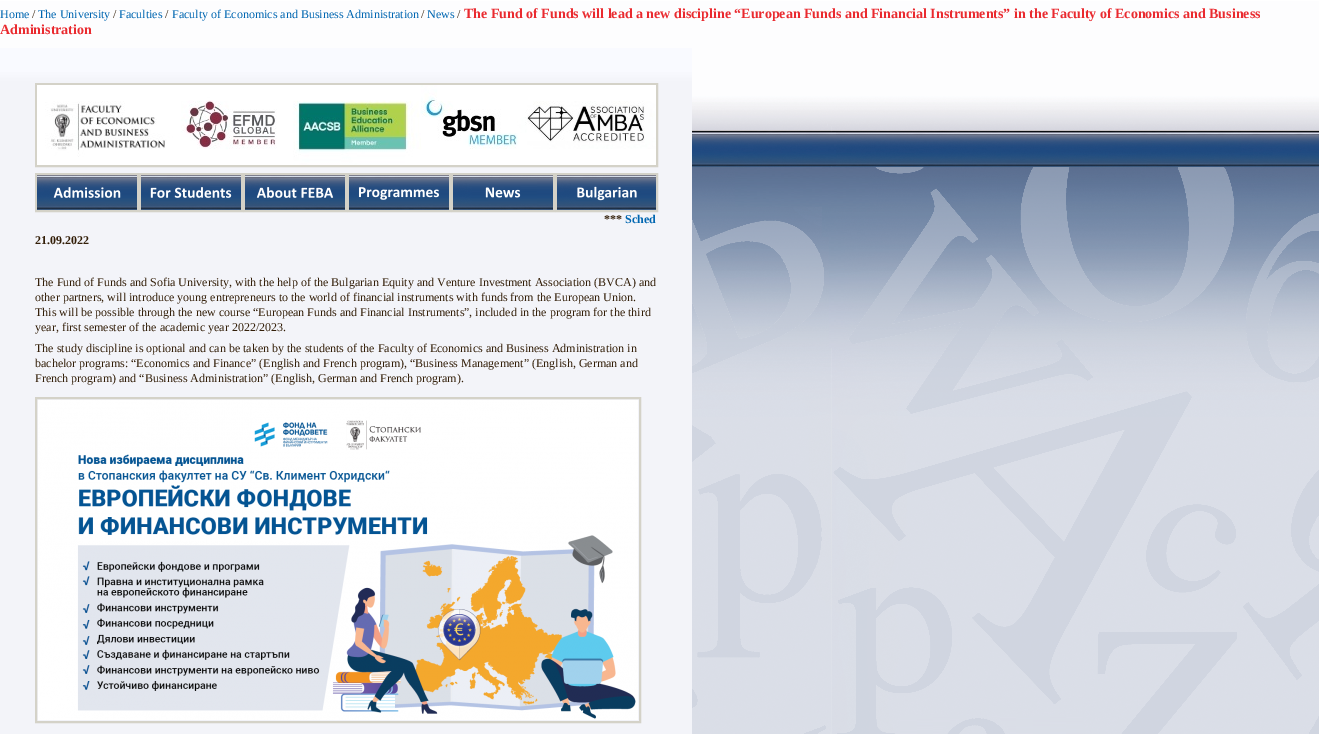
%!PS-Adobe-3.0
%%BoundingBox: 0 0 1319 734
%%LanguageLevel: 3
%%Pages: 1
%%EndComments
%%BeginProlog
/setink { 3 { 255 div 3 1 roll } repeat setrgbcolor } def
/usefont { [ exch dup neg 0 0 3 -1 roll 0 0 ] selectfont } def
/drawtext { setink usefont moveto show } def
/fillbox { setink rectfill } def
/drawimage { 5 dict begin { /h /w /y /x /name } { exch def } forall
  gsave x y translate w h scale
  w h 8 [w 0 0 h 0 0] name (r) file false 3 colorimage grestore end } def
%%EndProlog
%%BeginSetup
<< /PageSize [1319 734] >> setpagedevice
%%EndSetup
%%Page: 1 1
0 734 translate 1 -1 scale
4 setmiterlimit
0 0 1319 734 255 255 255 fillbox
(assets/img1.rgb) 0 0 1319 734 drawimage
(Home) 0 18 /LiberationSerif-Regular 12 0 102 177 drawtext
(/) 32 18 /LiberationSerif-Regular 12 51 31 9 drawtext
(The University) 38 18 /LiberationSerif-Regular 12 0 102 177 drawtext
(/) 113 18 /LiberationSerif-Regular 12 51 31 9 drawtext
(Faculties) 119 18 /LiberationSerif-Regular 12 0 102 177 drawtext
(/) 165 18 /LiberationSerif-Regular 12 51 31 9 drawtext
(Faculty of Economics and Business Administration) 172 18 /LiberationSerif-Regular 12 0 102 177 drawtext
(/) 421 18 /LiberationSerif-Regular 12 51 31 9 drawtext
(News) 427 18 /LiberationSerif-Regular 12 0 102 177 drawtext
(/) 457 18 /LiberationSerif-Regular 12 51 31 9 drawtext
(The Fund of Funds will lead a new discipline “European Funds and Financial Instruments” in the Faculty of Economics and Business) 464 18 /LiberationSerif-Bold 14 234 42 47 drawtext
(Administration) 0 34 /LiberationSerif-Bold 14 234 42 47 drawtext
gsave 0 48 moveto 692 48 lineto 692 734 lineto 0 734 lineto closepath clip newpath
<< /ShadingType 2 /ColorSpace /DeviceRGB /Coords [346 48 346 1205] /Extend [true true] /Function << /FunctionType 3 /Domain [0 1] /Functions [<< /FunctionType 2 /Domain [0 1] /C0 [0.976 0.98 1] /C1 [0.976 0.98 1] /N 1 >> << /FunctionType 2 /Domain [0 1] /C0 [0.976 0.98 1] /C1 [0.953 0.957 0.976] /N 1 >> << /FunctionType 2 /Domain [0 1] /C0 [0.953 0.957 0.976] /C1 [0.953 0.957 0.976] /N 1 >>] /Bounds [0.02 0.03] /Encode [0 1 0 1 0 1] >> >> shfill grestore
212 210 200 setink
2 setlinewidth
36 84 621 82 rectstroke
(assets/img2.rgb) 37 85 619 80 drawimage
36 174 102 37 rectstroke
(assets/img3.rgb) 37 175 100 35 drawimage
140 174 102 37 rectstroke
(assets/img4.rgb) 141 175 100 35 drawimage
244 174 102 37 rectstroke
(assets/img5.rgb) 245 175 100 35 drawimage
348 174 102 37 rectstroke
(assets/img6.rgb) 349 175 100 35 drawimage
452 174 102 37 rectstroke
(assets/img7.rgb) 453 175 100 35 drawimage
556 174 101 37 rectstroke
(assets/img8.rgb) 557 175 99 35 drawimage
(***) 604 223 /LiberationSerif-Bold 12 51 31 9 drawtext
(Sched) 625 223 /LiberationSerif-Bold 12 0 102 177 drawtext
(21.09.2022) 35 244 /LiberationSerif-Bold 12 51 31 9 drawtext
(The Fund of Funds and Sofia University, with the help of the Bulgarian Equity and Venture Investment Association \(BVCA\) and) 35 286 /LiberationSerif-Regular 12 51 31 9 drawtext
(other partners, will introduce young entrepreneurs to the world of financial instruments with funds from the European Union.) 35 301 /LiberationSerif-Regular 12 51 31 9 drawtext
(This will be possible through the new course “European Funds and Financial Instruments”, included in the program for the third) 35 316 /LiberationSerif-Regular 12 51 31 9 drawtext
(year, first semester of the academic year 2022/2023.) 35 331 /LiberationSerif-Regular 12 51 31 9 drawtext
(The study discipline is optional and can be taken by the students of the Faculty of Economics and Business Administration in) 35 352 /LiberationSerif-Regular 12 51 31 9 drawtext
(bachelor programs: “Economics and Finance” \(English and French program\), “Business Management” \(English, German and) 35 367 /LiberationSerif-Regular 12 51 31 9 drawtext
(French program\) and “Business Administration” \(English, German and French program\).) 35 382 /LiberationSerif-Regular 12 51 31 9 drawtext
212 210 200 setink
36 398 604 324 rectstroke
(assets/img9.rgb) 38 400 600 320 drawimage
showpage
%%EOF
